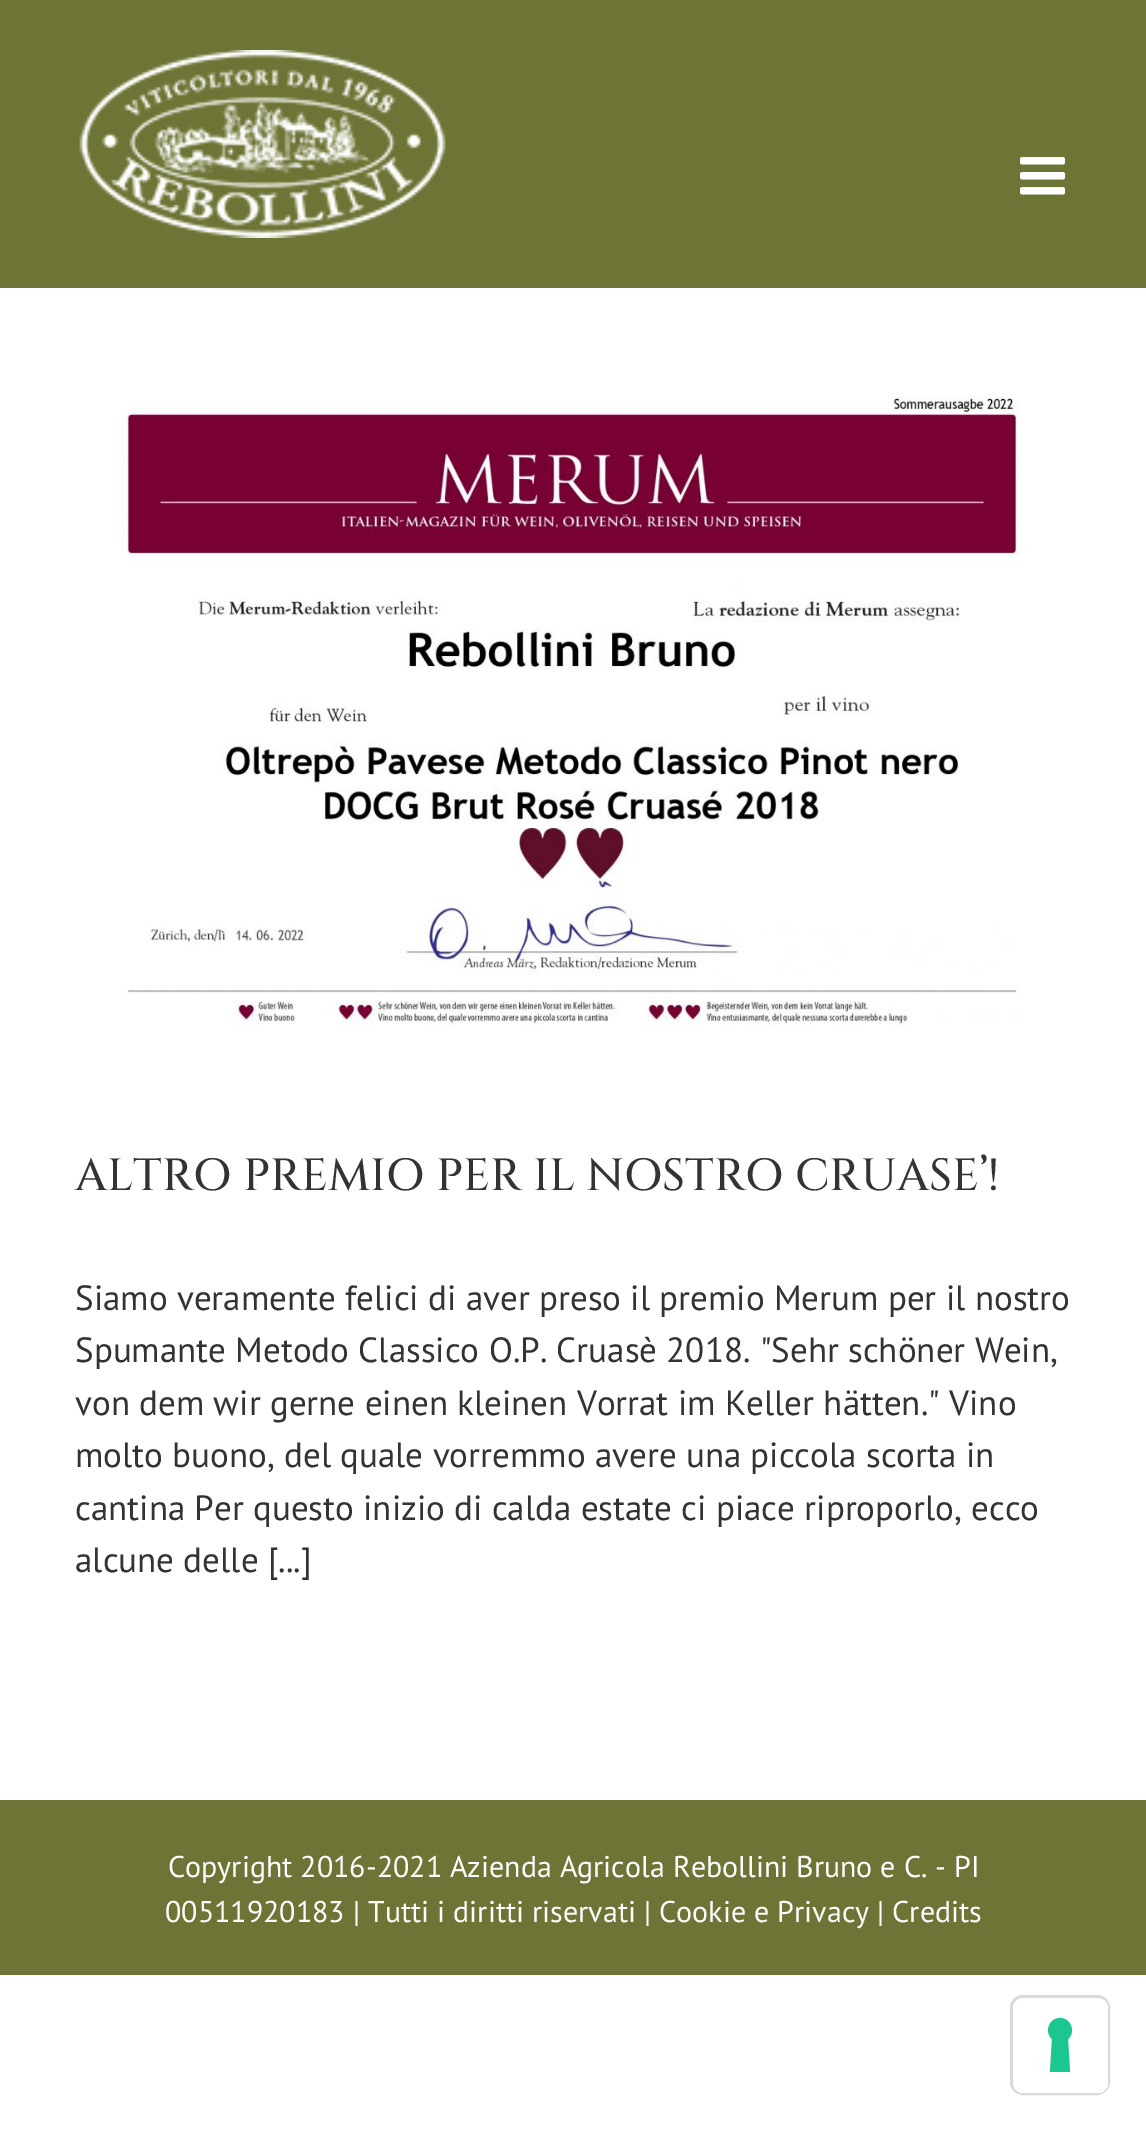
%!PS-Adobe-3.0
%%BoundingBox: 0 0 1146 2131
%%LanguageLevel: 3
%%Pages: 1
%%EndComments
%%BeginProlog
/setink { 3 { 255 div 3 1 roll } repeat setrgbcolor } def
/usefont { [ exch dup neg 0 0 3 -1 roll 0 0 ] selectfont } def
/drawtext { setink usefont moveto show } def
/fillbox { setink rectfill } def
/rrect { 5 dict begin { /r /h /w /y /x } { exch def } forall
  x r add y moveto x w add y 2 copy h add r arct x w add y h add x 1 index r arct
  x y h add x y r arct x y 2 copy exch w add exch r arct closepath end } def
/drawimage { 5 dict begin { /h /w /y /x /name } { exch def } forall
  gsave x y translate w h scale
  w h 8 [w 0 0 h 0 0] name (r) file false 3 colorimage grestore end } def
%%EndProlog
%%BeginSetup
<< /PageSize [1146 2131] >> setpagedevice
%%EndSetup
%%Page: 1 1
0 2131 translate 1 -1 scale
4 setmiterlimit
0 0 1146 2131 255 255 255 fillbox
0 0 1146 288 110 116 53 fillbox
(assets/img1.rgb) 79 50 367 188 drawimage
(assets/img2.rgb) 1020 157 45 38 drawimage
(assets/img3.rgb) 122 396 898 632 drawimage
(ALTRO PREMIO PER IL NOSTRO CRUASE’!) 75 1190 /Cinzel-Medium 45 51 51 51 drawtext
(Siamo veramente felici di aver preso il premio Merum per il nostro) 75 1310 /PTSans-Regular 35 51 51 51 drawtext
(Spumante Metodo Classico O.P. Cruasè 2018. "Sehr schöner Wein,) 75 1362 /PTSans-Regular 35 51 51 51 drawtext
(von dem wir gerne einen kleinen Vorrat im Keller hätten." Vino) 75 1415 /PTSans-Regular 35 51 51 51 drawtext
(molto buono, del quale vorremmo avere una piccola scorta in) 75 1467 /PTSans-Regular 35 51 51 51 drawtext
(cantina Per questo inizio di calda estate ci piace riproporlo, ecco) 75 1520 /PTSans-Regular 35 51 51 51 drawtext
(alcune delle [...]) 75 1572 /PTSans-Regular 35 51 51 51 drawtext
0 1800 1146 175 110 116 53 fillbox
(Copyright 2016-2021 Azienda Agricola Rebollini Bruno e C. - PI) 168 1877 /PTSans-Regular 30 255 255 255 drawtext
(00511920183 | Tutti i diritti riservati | Cookie e Privacy | Credits) 165 1922 /PTSans-Regular 30 255 255 255 drawtext
217 217 217 setink
3 setlinewidth
1011.5 1996.5 97 97 11.5 rrect stroke
255 255 255 setink
1013 1998 95 95 10 rrect fill
28 198 145 setink
1060 2018 moveto 1071 2018 1076 2032 1068 2039 curveto 1070 2072 lineto 1050 2072 lineto 1052 2039 lineto 1044 2032 1049 2018 1060 2018 curveto closepath eofill
showpage
%%EOF
